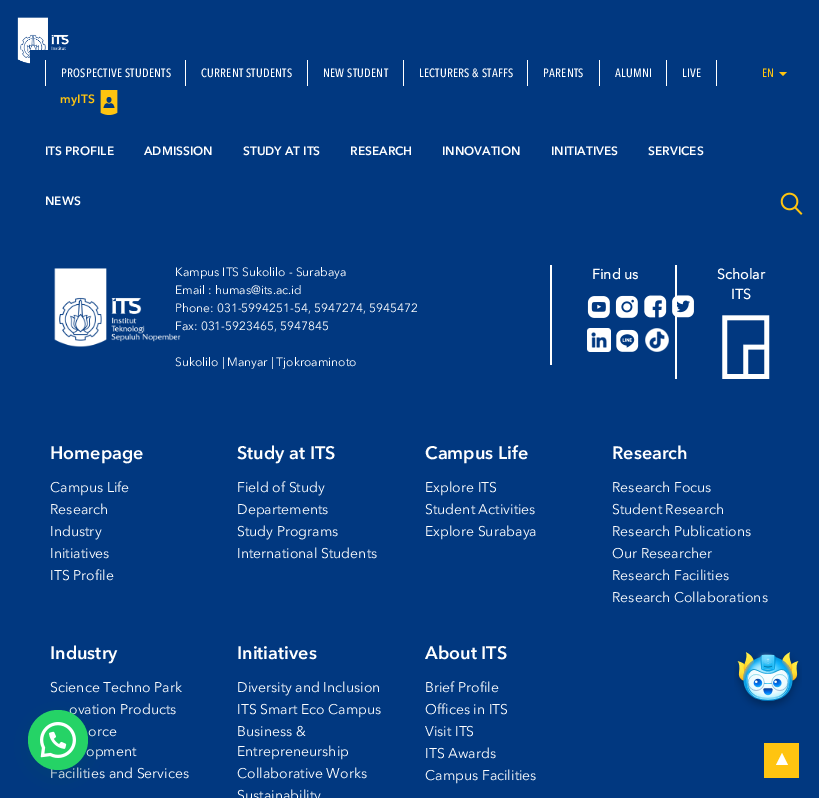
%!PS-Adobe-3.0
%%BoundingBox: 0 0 819 798
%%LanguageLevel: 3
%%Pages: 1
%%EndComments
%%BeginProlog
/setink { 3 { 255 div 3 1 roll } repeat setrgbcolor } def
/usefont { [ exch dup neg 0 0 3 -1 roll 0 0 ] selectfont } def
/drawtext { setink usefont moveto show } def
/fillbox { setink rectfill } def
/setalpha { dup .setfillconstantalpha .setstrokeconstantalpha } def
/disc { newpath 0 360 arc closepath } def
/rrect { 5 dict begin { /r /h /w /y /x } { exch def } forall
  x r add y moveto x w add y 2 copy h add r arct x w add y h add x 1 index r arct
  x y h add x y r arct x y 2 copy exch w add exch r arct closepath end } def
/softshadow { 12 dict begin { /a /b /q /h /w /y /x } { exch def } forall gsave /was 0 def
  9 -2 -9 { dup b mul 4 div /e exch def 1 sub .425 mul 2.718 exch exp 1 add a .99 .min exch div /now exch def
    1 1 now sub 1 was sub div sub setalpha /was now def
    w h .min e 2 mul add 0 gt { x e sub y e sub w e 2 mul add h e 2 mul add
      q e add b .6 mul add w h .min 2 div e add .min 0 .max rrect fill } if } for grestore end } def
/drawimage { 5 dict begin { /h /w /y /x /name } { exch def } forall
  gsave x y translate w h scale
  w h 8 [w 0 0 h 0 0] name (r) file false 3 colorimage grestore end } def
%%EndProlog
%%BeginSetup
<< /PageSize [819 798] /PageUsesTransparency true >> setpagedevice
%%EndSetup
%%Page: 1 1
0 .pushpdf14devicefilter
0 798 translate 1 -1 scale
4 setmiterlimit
0 0 819 798 1 56 128 fillbox
(assets/img1.rgb) 17 17 52 47 drawimage
30 50 39 14 1 56 128 fillbox
185 60 1 26 255 255 255 fillbox
45 60 1 26 255 255 255 fillbox
/AvenirNext-Medium 12 usefont
61 77 moveto 0.25 0 (PROSPECTIVE STUDENTS) ashow
307 60 1 26 255 255 255 fillbox
201 77 moveto 0.25 0 (CURRENT STUDENTS) ashow
403 60 1 26 255 255 255 fillbox
323 77 moveto 0.25 0 (NEW STUDENT) ashow
527 60 1 26 255 255 255 fillbox
419 77 moveto 0.25 0 (LECTURERS & STAFFS) ashow
599 60 1 26 255 255 255 fillbox
543 77 moveto 0.25 0 (PARENTS) ashow
666 60 1 26 255 255 255 fillbox
615 77 moveto 0.25 0 (ALUMNI) ashow
716 60 1 26 255 255 255 fillbox
682 77 moveto 0.25 0 (LIVE) ashow
255 196 16 setink
762 77 moveto 0.25 0 (EN) ashow
779 72 moveto 787 72 lineto 783 76 lineto closepath fill
/AvenirNext-SemiBold 12 usefont
60 103 moveto 0.25 0 (myITS) ashow
(assets/img2.rgb) 100 90 18 25 drawimage
(ITS PROFILE) 45 155 /AvenirNext-SemiBold 12 255 255 255 drawtext
(ADMISSION) 144 155 /AvenirNext-SemiBold 12 255 255 255 drawtext
(STUDY AT ITS) 243 155 /AvenirNext-SemiBold 12 255 255 255 drawtext
(RESEARCH) 350 155 /AvenirNext-SemiBold 12 255 255 255 drawtext
(INNOVATION) 442 155 /AvenirNext-SemiBold 12 255 255 255 drawtext
(INITIATIVES) 551 155 /AvenirNext-SemiBold 12 255 255 255 drawtext
(SERVICES) 648 155 /AvenirNext-SemiBold 12 255 255 255 drawtext
(NEWS) 45 205 /AvenirNext-SemiBold 12 255 255 255 drawtext
(assets/img3.rgb) 780 192 23 23 drawimage
(assets/img4.rgb) 54 268 127 79 drawimage
(Kampus ITS Sukolilo - Surabaya) 175 276 /AvenirNext-Regular 12 255 255 255 drawtext
(Email : humas@its.ac.id) 175 294 /AvenirNext-Regular 12 255 255 255 drawtext
(Phone: 031-5994251-54, 5947274, 5945472) 175 312 /AvenirNext-Regular 12 255 255 255 drawtext
(Fax: 031-5923465, 5947845) 175 330 /AvenirNext-Regular 12 255 255 255 drawtext
(Sukolilo | Manyar | Tjokroaminoto) 175 366 /AvenirNext-Regular 12 255 255 255 drawtext
550 265 2 100 255 255 255 fillbox
(Find us) 592 279 /AvenirNext-Bold 14 255 255 255 drawtext
(assets/img5.rgb) 587 296 23 22 drawimage
(assets/img6.rgb) 615 295 23 23 drawimage
(assets/img7.rgb) 644 295 23 23 drawimage
(assets/img8.rgb) 672 295 22 23 drawimage
(assets/img9.rgb) 587 328 24 24 drawimage
(assets/img10.rgb) 616 329 23 23 drawimage
(assets/img11.rgb) 645 328 24 24 drawimage
675 265 2 114 255 255 255 fillbox
(Scholar) 717 279 /AvenirNext-Bold 14 255 255 255 drawtext
(ITS) 731 299 /AvenirNext-Bold 14 255 255 255 drawtext
(assets/img12.rgb) 722 315 48 64 drawimage
(Homepage) 50 459 /AvenirNext-SemiBold 18 255 255 255 drawtext
(Campus Life) 50 492 /AvenirNext-Regular 14 255 255 255 drawtext
(Research) 50 514 /AvenirNext-Regular 14 255 255 255 drawtext
(Industry) 50 536 /AvenirNext-Regular 14 255 255 255 drawtext
(Initiatives) 50 558 /AvenirNext-Regular 14 255 255 255 drawtext
(ITS Profile) 50 580 /AvenirNext-Regular 14 255 255 255 drawtext
(Study at ITS) 237 459 /AvenirNext-SemiBold 18 255 255 255 drawtext
(Field of Study) 237 492 /AvenirNext-Regular 14 255 255 255 drawtext
(Departements) 237 514 /AvenirNext-Regular 14 255 255 255 drawtext
(Study Programs) 237 536 /AvenirNext-Regular 14 255 255 255 drawtext
(International Students) 237 558 /AvenirNext-Regular 14 255 255 255 drawtext
(Campus Life) 425 459 /AvenirNext-SemiBold 18 255 255 255 drawtext
(Explore ITS) 425 492 /AvenirNext-Regular 14 255 255 255 drawtext
(Student Activities) 425 514 /AvenirNext-Regular 14 255 255 255 drawtext
(Explore Surabaya) 425 536 /AvenirNext-Regular 14 255 255 255 drawtext
(Research) 612 459 /AvenirNext-SemiBold 18 255 255 255 drawtext
(Research Focus) 612 492 /AvenirNext-Regular 14 255 255 255 drawtext
(Student Research) 612 514 /AvenirNext-Regular 14 255 255 255 drawtext
(Research Publications) 612 536 /AvenirNext-Regular 14 255 255 255 drawtext
(Our Researcher) 612 558 /AvenirNext-Regular 14 255 255 255 drawtext
(Research Facilities) 612 580 /AvenirNext-Regular 14 255 255 255 drawtext
(Research Collaborations) 612 602 /AvenirNext-Regular 14 255 255 255 drawtext
(Industry) 50 659 /AvenirNext-SemiBold 18 255 255 255 drawtext
(Science Techno Park) 50 692 /AvenirNext-Regular 14 255 255 255 drawtext
(ovation Products) 69 714 /AvenirNext-Regular 14 255 255 255 drawtext
(orce) 88 736 /AvenirNext-Regular 14 255 255 255 drawtext
(opment) 86 756 /AvenirNext-Regular 14 255 255 255 drawtext
(Facilities and Services) 50 778 /AvenirNext-Regular 14 255 255 255 drawtext
(Initiatives) 237 659 /AvenirNext-SemiBold 18 255 255 255 drawtext
(Diversity and Inclusion) 237 692 /AvenirNext-Regular 14 255 255 255 drawtext
(ITS Smart Eco Campus) 237 714 /AvenirNext-Regular 14 255 255 255 drawtext
(Business &) 237 736 /AvenirNext-Regular 14 255 255 255 drawtext
(Entrepreneurship) 237 756 /AvenirNext-Regular 14 255 255 255 drawtext
(Collaborative Works) 237 778 /AvenirNext-Regular 14 255 255 255 drawtext
(Sustainability) 237 800 /AvenirNext-Regular 14 255 255 255 drawtext
(About ITS) 425 659 /AvenirNext-SemiBold 18 255 255 255 drawtext
(Brief Profile) 425 692 /AvenirNext-Regular 14 255 255 255 drawtext
(Offices in ITS) 425 714 /AvenirNext-Regular 14 255 255 255 drawtext
(Visit ITS) 425 736 /AvenirNext-Regular 14 255 255 255 drawtext
(ITS Awards) 425 758 /AvenirNext-Regular 14 255 255 255 drawtext
(Campus Facilities) 425 780 /AvenirNext-Regular 14 255 255 255 drawtext
7 94 84 setink
29 716 60 60 30 12 0.24 softshadow
37 211 102 setink
58 740 30 disc fill
(assets/img13.rgb) 40 722 36 36 drawimage
(assets/img14.rgb) 734 652 68 58 drawimage
764 743 35 35 255 196 16 fillbox
255 255 255 setink
788 765 moveto 776 765 lineto 782 753 lineto closepath fill
.poppdf14devicefilter showpage
%%EOF
